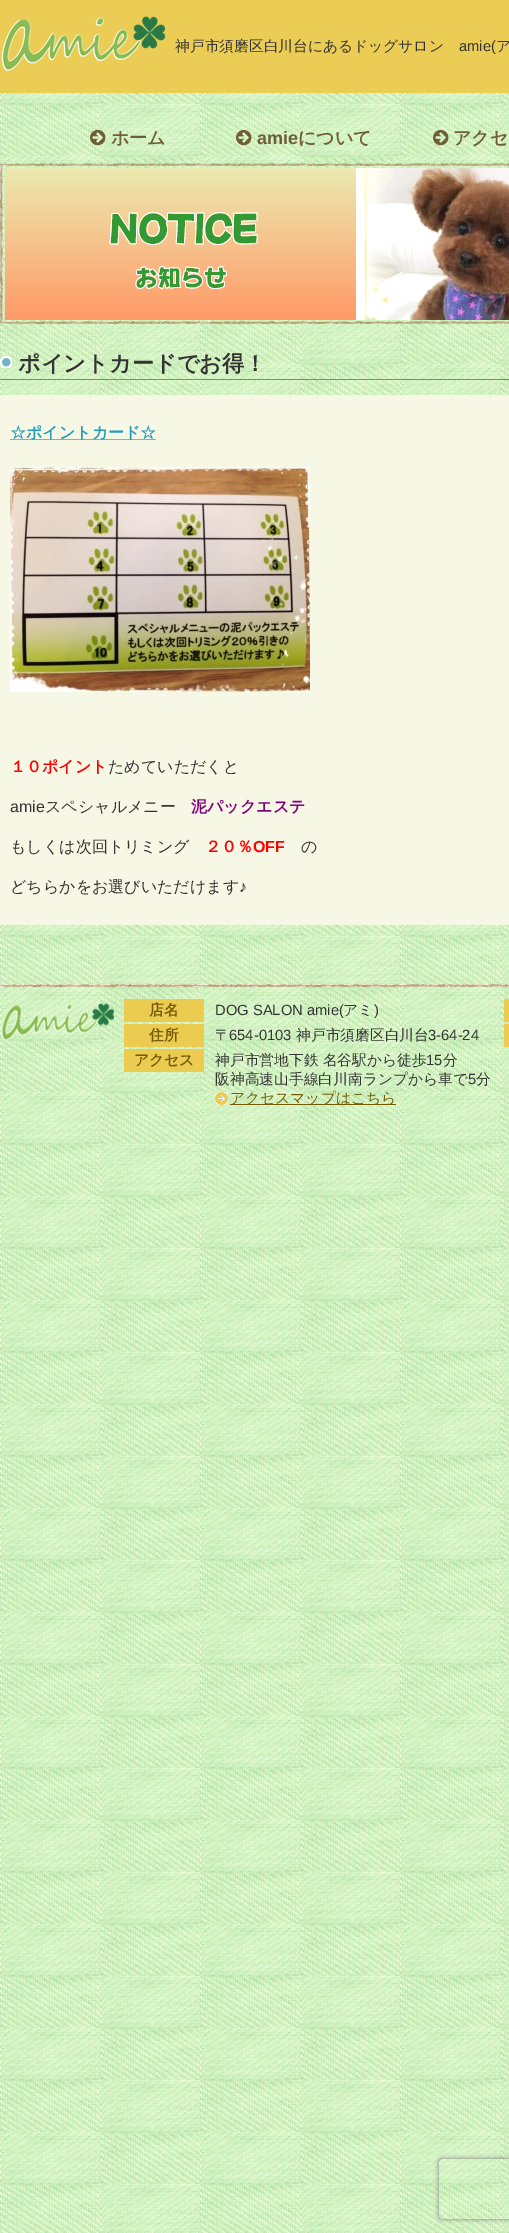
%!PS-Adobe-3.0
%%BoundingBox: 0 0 509 2233
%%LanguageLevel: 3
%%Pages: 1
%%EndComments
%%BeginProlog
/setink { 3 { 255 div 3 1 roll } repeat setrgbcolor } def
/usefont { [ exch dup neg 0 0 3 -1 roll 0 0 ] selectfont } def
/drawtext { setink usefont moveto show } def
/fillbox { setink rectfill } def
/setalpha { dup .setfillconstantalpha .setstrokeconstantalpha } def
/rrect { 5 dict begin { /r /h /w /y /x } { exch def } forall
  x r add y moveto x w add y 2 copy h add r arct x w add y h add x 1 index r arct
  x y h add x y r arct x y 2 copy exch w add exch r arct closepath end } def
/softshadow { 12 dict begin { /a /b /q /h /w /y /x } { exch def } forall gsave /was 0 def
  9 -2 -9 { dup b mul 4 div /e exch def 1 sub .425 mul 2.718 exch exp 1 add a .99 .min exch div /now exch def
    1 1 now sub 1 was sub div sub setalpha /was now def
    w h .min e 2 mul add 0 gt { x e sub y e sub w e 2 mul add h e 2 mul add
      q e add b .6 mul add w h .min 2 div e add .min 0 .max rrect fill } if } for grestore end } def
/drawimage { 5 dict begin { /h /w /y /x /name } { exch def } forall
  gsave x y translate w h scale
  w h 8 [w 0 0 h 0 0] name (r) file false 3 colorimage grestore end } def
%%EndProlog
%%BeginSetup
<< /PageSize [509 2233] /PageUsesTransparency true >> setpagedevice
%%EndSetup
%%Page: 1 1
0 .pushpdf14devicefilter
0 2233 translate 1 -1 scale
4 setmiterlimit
0 0 509 2233 255 255 255 fillbox
(assets/img1.rgb) 0 93 509 2140 drawimage
0 0 509 93 235 205 85 fillbox
(assets/img2.rgb) 1 16 164 55 drawimage
(神戸市須磨区白川台にあるドッグサロン) 175 51 /WenQuanYiZenHei-Medium 14.75 51 51 51 drawtext
(amie\() 459 51 /LiberationSans-Regular 14.75 51 51 51 drawtext
(ア) 496 51 /WenQuanYiZenHei-Medium 14.75 51 51 51 drawtext
(assets/img3.rgb) 90 129 16 17 drawimage
(ホーム) 111 144 /WenQuanYiZenHei-Bold 18 111 93 54 drawtext
(assets/img4.rgb) 236 129 16 17 drawimage
(amie) 257 144 /LiberationSans-Bold 18 111 93 54 drawtext
(について) 298 144 /WenQuanYiZenHei-Bold 18 111 93 54 drawtext
(assets/img5.rgb) 433 129 16 17 drawimage
(アクセ) 453 144 /WenQuanYiZenHei-Bold 18 111 93 54 drawtext
(assets/img6.rgb) 0 163 509 161 drawimage
(assets/img7.rgb) 5 168 504 152 drawimage
(assets/img8.rgb) 0 356 12 12 drawimage
0 379 509 1 174 138 5 fillbox
(ポイントカードでお得！) 18 371 /WenQuanYiZenHei-Bold 22.2 51 51 51 drawtext
0 395 509 530 247 247 229 fillbox
10 439 146 1 153 204 0 fillbox
(☆ポイントカード☆) 10 438 /WenQuanYiZenHei-Bold 16 36 156 187 drawtext
(assets/img9.rgb) 10 467 300 225 drawimage
(１０ポイント) 10 772 /WenQuanYiZenHei-Bold 16 255 0 0 drawtext
(ためていただくと) 108 772 /WenQuanYiZenHei-Medium 16 51 51 51 drawtext
(amie) 10 812 /LiberationSans-Regular 16 51 51 51 drawtext
(スペシャルメニー) 45 812 /WenQuanYiZenHei-Medium 16 51 51 51 drawtext
(泥パックエステ) 191 812 /WenQuanYiZenHei-Bold 16 128 0 128 drawtext
(もしくは次回トリミング) 10 852 /WenQuanYiZenHei-Medium 16 51 51 51 drawtext
(２０％) 205 852 /WenQuanYiZenHei-Bold 16 255 0 0 drawtext
(OFF) 253 852 /LiberationSans-Bold 16 255 0 0 drawtext
(の) 301 852 /WenQuanYiZenHei-Medium 16 51 51 51 drawtext
(どちらかをお選びいただけます) 10 892 /WenQuanYiZenHei-Medium 16 51 51 51 drawtext
(♪) 239 892 /LiberationSans-Regular 16 51 51 51 drawtext
(assets/img10.rgb) 0 984 509 3 drawimage
(assets/img11.rgb) 1 1003 113 38 drawimage
124 999 80 23 235 203 80 fillbox
(店名) 149 1015 /WenQuanYiZenHei-Bold 14.75 116 92 5 drawtext
(DOG SALON amie\() 215 1015 /LiberationSans-Regular 14.75 51 51 51 drawtext
(アミ) 343 1015 /WenQuanYiZenHei-Medium 14.75 51 51 51 drawtext
(\)) 374 1015 /LiberationSans-Regular 14.75 51 51 51 drawtext
124 1024 80 23 235 203 80 fillbox
(住所) 149 1040 /WenQuanYiZenHei-Bold 14.75 116 92 5 drawtext
(〒) 215 1040 /WenQuanYiZenHei-Medium 14.75 51 51 51 drawtext
(654-0103) 229 1040 /LiberationSans-Regular 14.75 51 51 51 drawtext
(神戸市須磨区白川台) 296 1040 /WenQuanYiZenHei-Medium 14.75 51 51 51 drawtext
(3-64-24) 428 1040 /LiberationSans-Regular 14.75 51 51 51 drawtext
124 1049 80 23 235 203 80 fillbox
(アクセス) 134 1065 /WenQuanYiZenHei-Bold 14.75 116 92 5 drawtext
(神戸市営地下鉄 名谷駅から徒歩) 215 1065 /WenQuanYiZenHei-Medium 14.75 51 51 51 drawtext
(15) 426 1065 /LiberationSans-Regular 14.75 51 51 51 drawtext
(分) 443 1065 /WenQuanYiZenHei-Medium 14.75 51 51 51 drawtext
(阪神高速山手線白川南ランプから車で) 215 1084 /WenQuanYiZenHei-Medium 14.75 51 51 51 drawtext
(5) 468 1084 /LiberationSans-Regular 14.75 51 51 51 drawtext
(分) 476 1084 /WenQuanYiZenHei-Medium 14.75 51 51 51 drawtext
(assets/img12.rgb) 215 1092 13 13 drawimage
230 1104 166 1 116 92 5 fillbox
(アクセスマップはこちら) 230 1103 /WenQuanYiZenHei-Medium 14.75 116 92 5 drawtext
504 999 5 23 235 203 80 fillbox
504 1024 5 23 235 203 80 fillbox
gsave
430 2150 moveto 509 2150 lineto 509 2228 lineto 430 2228 lineto closepath 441 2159 moveto 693 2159 lineto 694 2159 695 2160 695 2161 curveto 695 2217 lineto 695 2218 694 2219 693 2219 curveto 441 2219 lineto 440 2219 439 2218 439 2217 curveto 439 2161 lineto 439 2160 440 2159 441 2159 curveto closepath eoclip newpath
128 128 128 setink
439 2159 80 60 2 2.5 1 softshadow
grestore
.poppdf14devicefilter showpage
%%EOF
